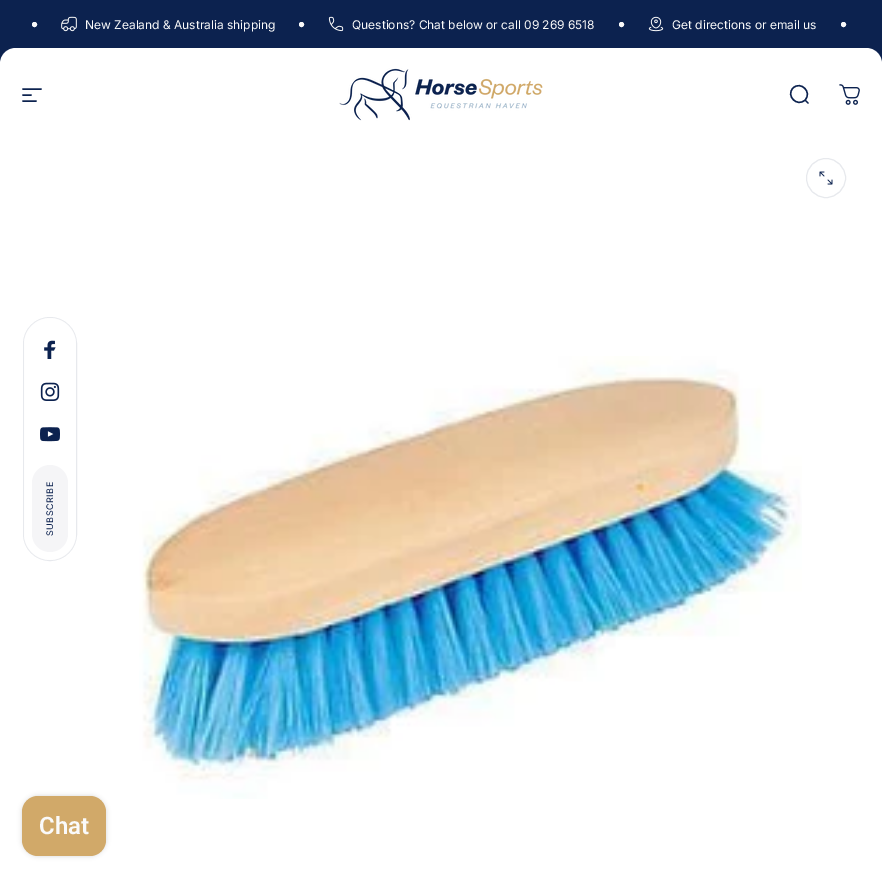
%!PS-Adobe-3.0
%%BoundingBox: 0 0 882 877
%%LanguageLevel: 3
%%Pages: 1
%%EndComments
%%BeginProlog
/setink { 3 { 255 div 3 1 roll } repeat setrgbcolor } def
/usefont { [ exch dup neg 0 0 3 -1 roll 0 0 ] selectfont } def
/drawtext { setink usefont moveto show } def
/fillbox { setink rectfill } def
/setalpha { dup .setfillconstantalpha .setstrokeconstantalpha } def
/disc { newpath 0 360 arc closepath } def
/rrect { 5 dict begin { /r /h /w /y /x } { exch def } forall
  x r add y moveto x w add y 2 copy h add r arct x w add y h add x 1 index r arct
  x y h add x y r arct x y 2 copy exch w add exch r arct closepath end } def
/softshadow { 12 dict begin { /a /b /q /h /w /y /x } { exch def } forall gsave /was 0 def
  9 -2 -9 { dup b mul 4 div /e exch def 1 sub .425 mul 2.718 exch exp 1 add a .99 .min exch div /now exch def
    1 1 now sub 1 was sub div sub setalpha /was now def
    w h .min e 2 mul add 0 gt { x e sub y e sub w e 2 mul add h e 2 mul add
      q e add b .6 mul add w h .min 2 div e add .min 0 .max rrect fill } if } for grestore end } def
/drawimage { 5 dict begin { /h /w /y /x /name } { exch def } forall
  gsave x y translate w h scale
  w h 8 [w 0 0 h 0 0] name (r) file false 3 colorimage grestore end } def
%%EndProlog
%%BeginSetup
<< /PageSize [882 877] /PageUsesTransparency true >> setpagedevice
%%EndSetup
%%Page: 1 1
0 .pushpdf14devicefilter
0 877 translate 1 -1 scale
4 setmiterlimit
0 0 882 877 255 255 255 fillbox
0 0 882 16 12 34 79 fillbox
16 0 moveto 866 0 lineto 875 0 882 7 882 16 curveto 882 64 lineto 0 64 lineto 0 16 lineto 0 7 7 0 16 0 curveto closepath fill
250 250 250 setink
34.5 24.5 2 disc gsave fill grestore
stroke
(assets/img1.rgb) 61 16 16 16 drawimage
(New Zealand & Australia shipping) 85 29 /Inter-Regular 12 250 250 250 drawtext
301.5 24.5 2 disc gsave fill grestore
stroke
(assets/img2.rgb) 328 16 16 16 drawimage
(Questions? Chat below or call 09 269 6518) 352 29 /Inter-Regular 12 250 250 250 drawtext
621.5 24.5 2 disc gsave fill grestore
stroke
(assets/img3.rgb) 648 16 16 16 drawimage
(Get directions or email us) 672 29 /Inter-Regular 12 250 250 250 drawtext
843.5 24.5 2 disc gsave fill grestore
stroke
255 255 255 setink
16 48 moveto 866 48 lineto 875 48 882 55 882 64 curveto 882 142 lineto 0 142 lineto 0 64 lineto 0 55 7 48 16 48 curveto closepath fill
12 34 79 setink
1.5 setlinewidth
1 setlinecap
23 89 moveto 41 89 lineto 23 95 moveto 31 95 lineto 23 101 moveto 36 101 lineto stroke
(assets/img4.rgb) 339 68 204 53 drawimage
1.4 setlinewidth
808 103 moveto 805 100 lineto 805 100 moveto 812.5 92.5 801 80.5 793 88 curveto 785.5 96 797.5 107.5 805 100 curveto closepath stroke
(assets/img5.rgb) 839 84 21 21 drawimage
231 233 237 setink
1 setlinewidth
0 setlinecap
23.5 317.5 53 243 26.5 rrect stroke
0.8 setalpha
255 255 255 setink
24 318 52 242 26 rrect fill
1 setalpha
(assets/img6.rgb) 44 340 12 19 drawimage
(assets/img7.rgb) 40 382 20 19 drawimage
(assets/img8.rgb) 40 427 20 15 drawimage
245 245 247 setink
50 552 moveto 40 552 32 544 32 534 curveto 32 483 lineto 32 473 40 465 50 465 curveto 60 465 68 473 68 483 curveto 68 534 lineto 68 544 60 552 50 552 curveto closepath fill
/Inter-Regular 9 usefont
12 34 79 setink
gsave 53 536 translate -90 rotate 0 0 moveto 0.5 0 (SUBSCRIBE) ashow grestore
231 233 237 setink
826 178 19.5 disc stroke
(assets/img9.rgb) 819 171 14 14 drawimage
(assets/img10.rgb) 139 356 663 443 drawimage
0 0 0 setink
22 796 84 60 16 2.5 0.15 softshadow
209 169 105 setink
22 796 84 60 16 rrect fill
(Chat) 39 834 /Roboto-SemiBold 24 250 250 250 drawtext
.poppdf14devicefilter showpage
%%EOF
